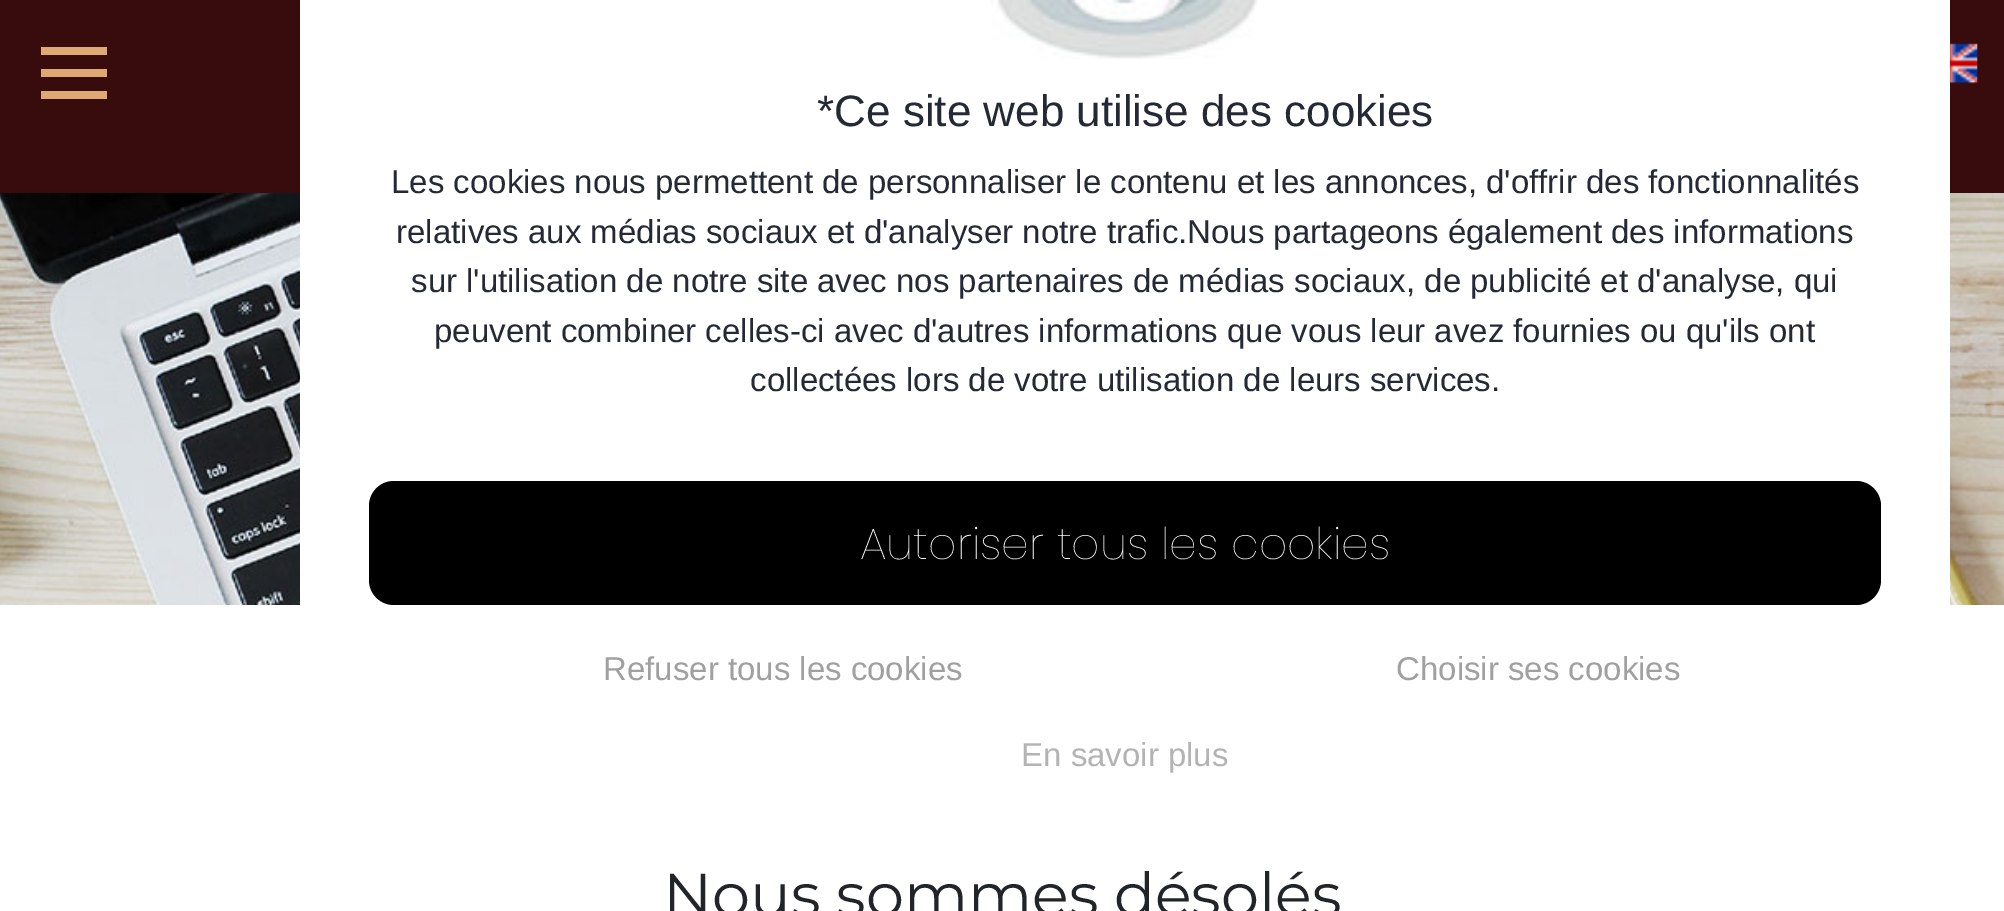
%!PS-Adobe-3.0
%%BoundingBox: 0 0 2004 911
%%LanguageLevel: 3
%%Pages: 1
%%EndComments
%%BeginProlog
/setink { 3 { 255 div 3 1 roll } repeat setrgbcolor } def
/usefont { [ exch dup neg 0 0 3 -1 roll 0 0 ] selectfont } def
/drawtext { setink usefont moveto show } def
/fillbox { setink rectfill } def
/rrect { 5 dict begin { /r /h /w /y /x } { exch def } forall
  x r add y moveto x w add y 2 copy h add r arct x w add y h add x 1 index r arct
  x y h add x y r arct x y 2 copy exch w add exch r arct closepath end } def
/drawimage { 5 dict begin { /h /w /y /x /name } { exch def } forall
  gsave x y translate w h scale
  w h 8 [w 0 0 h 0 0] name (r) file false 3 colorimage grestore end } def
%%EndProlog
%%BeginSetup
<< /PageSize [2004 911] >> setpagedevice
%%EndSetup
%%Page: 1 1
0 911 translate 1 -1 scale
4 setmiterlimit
0 0 2004 911 255 255 255 fillbox
0 0 2004 193 56 11 13 fillbox
41 69 66 8 223 169 116 fillbox
41 47 66 8 223 169 116 fillbox
41 91 66 8 223 169 116 fillbox
(assets/img1.rgb) 1950 43 28 41 drawimage
(assets/img3.rgb) 0 193 2004 412 drawimage
255 255 255 setink
300 -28 1650 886 28 rrect fill
(assets/img2.rgb) 991 0 267 59 drawimage
(*Ce site web utilise des cookies) 817 126 /LiberationSans-Regular 44 36 41 53 drawtext
(Les cookies nous permettent de personnaliser le contenu et les annonces, d'offrir des fonctionnalités) 391 193 /LiberationSans-Regular 33 36 41 53 drawtext
(relatives aux médias sociaux et d'analyser notre trafic.Nous partageons également des informations) 396 243 /LiberationSans-Regular 33 36 41 53 drawtext
(sur l'utilisation de notre site avec nos partenaires de médias sociaux, de publicité et d'analyse, qui) 411 292 /LiberationSans-Regular 33 36 41 53 drawtext
(peuvent combiner celles-ci avec d'autres informations que vous leur avez fournies ou qu'ils ont) 434 342 /LiberationSans-Regular 33 36 41 53 drawtext
(collectées lors de votre utilisation de leurs services.) 750 391 /LiberationSans-Regular 33 36 41 53 drawtext
0 0 0 setink
369 481 1512 124 25 rrect fill
(Autoriser tous les cookies) 860 559 /Poppins-ExtraLight 44 255 255 255 drawtext
(Refuser tous les cookies) 603 680 /LiberationSans-Regular 33 160 160 160 drawtext
(Choisir ses cookies) 1396 680 /LiberationSans-Regular 33 160 160 160 drawtext
(En savoir plus) 1021 766 /LiberationSans-Regular 33 179 179 179 drawtext
(Nous sommes désolés) 663 916 /Montserrat-Regular 60.5 33 37 41 drawtext
showpage
%%EOF
